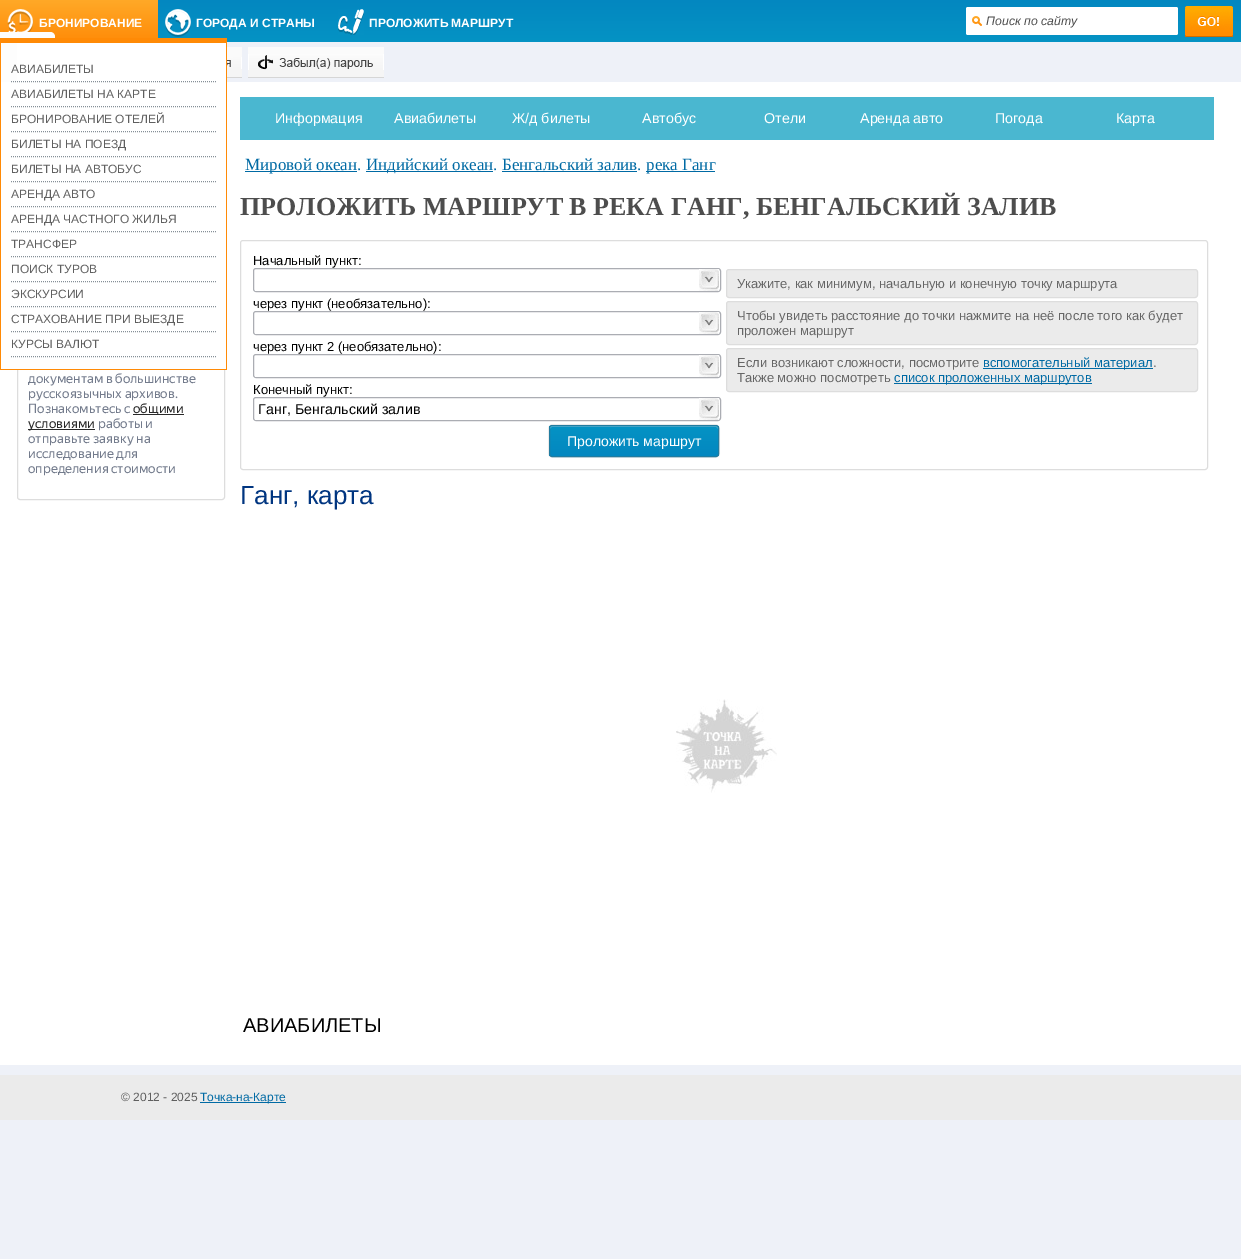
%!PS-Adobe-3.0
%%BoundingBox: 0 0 1241 1259
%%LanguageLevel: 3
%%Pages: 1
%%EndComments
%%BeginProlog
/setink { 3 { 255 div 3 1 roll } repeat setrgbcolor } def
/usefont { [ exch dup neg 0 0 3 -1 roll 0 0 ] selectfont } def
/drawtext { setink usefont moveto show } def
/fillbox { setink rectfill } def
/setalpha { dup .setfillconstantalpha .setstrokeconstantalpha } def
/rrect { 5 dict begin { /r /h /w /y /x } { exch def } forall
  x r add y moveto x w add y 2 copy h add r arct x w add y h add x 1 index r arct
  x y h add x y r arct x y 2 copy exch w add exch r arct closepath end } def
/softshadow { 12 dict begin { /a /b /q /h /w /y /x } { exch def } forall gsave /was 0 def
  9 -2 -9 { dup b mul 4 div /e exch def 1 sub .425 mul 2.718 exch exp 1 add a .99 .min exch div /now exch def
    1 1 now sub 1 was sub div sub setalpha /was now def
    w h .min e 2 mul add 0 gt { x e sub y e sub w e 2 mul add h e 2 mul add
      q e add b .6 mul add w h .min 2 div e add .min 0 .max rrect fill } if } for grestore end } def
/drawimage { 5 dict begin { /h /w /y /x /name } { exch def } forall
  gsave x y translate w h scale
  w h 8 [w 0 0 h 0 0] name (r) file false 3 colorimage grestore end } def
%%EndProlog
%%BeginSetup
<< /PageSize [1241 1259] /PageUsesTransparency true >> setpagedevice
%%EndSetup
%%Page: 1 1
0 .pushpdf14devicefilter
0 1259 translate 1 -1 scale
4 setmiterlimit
0 0 1241 1259 238 241 248 fillbox
gsave 158 0 moveto 1241 0 lineto 1241 42 lineto 158 42 lineto closepath clip newpath
<< /ShadingType 2 /ColorSpace /DeviceRGB /Coords [0 0 0 42] /Extend [true true] /Function << /FunctionType 2 /Domain [0 1] /C0 [0.012 0.529 0.753] /C1 [0.02 0.576 0.769] /N 1 >> >> shfill grestore
gsave 0 0 moveto 158 0 lineto 158 38 lineto 0 38 lineto closepath clip newpath
<< /ShadingType 2 /ColorSpace /DeviceRGB /Coords [0 0 0 44] /Extend [true true] /Function << /FunctionType 2 /Domain [0 1] /C0 [1 0.663 0.153] /C1 [1 0.541 0.024] /N 1 >> >> shfill grestore
(assets/img1.rgb) 7 9 26 23 drawimage
(БРОНИРОВАНИЕ) 39 27 /LiberationSans-Bold 12 255 255 255 drawtext
253 253 253 setink
0 32 moveto 50 32 lineto 53 32 55 34 55 37 curveto 55 77 lineto 55 80 53 82 50 82 curveto 0 82 lineto closepath fill
0 82 1241 983 255 255 255 fillbox
221 221 221 setink
17.5 97.5 207 402 2.5 rrect stroke
17 43 209 326 255 255 255 fillbox
0 38 227 5 255 138 6 fillbox
226 38 1 332 255 138 6 fillbox
0 369 227 1 255 138 6 fillbox
0 38 1 332 255 138 6 fillbox
133 143 151 setink
[1 1] 0 setdash
11 81.5 moveto 216 81.5 lineto stroke
(АВИАБИЛЕТЫ) 11 73 /LiberationSans-Regular 12 95 95 95 drawtext
133 143 151 setink
11 106.5 moveto 216 106.5 lineto stroke
(АВИАБИЛЕТЫ НА КАРТЕ) 11 98 /LiberationSans-Regular 12 95 95 95 drawtext
133 143 151 setink
11 131.5 moveto 216 131.5 lineto stroke
(БРОНИРОВАНИЕ ОТЕЛЕЙ) 11 123 /LiberationSans-Regular 12 95 95 95 drawtext
133 143 151 setink
11 156.5 moveto 216 156.5 lineto stroke
(БИЛЕТЫ НА ПОЕЗД) 11 148 /LiberationSans-Regular 12 95 95 95 drawtext
133 143 151 setink
11 181.5 moveto 216 181.5 lineto stroke
(БИЛЕТЫ НА АВТОБУС) 11 173 /LiberationSans-Regular 12 95 95 95 drawtext
133 143 151 setink
11 206.5 moveto 216 206.5 lineto stroke
(АРЕНДА АВТО) 11 198 /LiberationSans-Regular 12 95 95 95 drawtext
133 143 151 setink
11 231.5 moveto 216 231.5 lineto stroke
(АРЕНДА ЧАСТНОГО ЖИЛЬЯ) 11 223 /LiberationSans-Regular 12 95 95 95 drawtext
133 143 151 setink
11 256.5 moveto 216 256.5 lineto stroke
(ТРАНСФЕР) 11 248 /LiberationSans-Regular 12 95 95 95 drawtext
133 143 151 setink
11 281.5 moveto 216 281.5 lineto stroke
(ПОИСК ТУРОВ) 11 273 /LiberationSans-Regular 12 95 95 95 drawtext
133 143 151 setink
11 306.5 moveto 216 306.5 lineto stroke
(ЭКСКУРСИИ) 11 298 /LiberationSans-Regular 12 95 95 95 drawtext
133 143 151 setink
11 331.5 moveto 216 331.5 lineto stroke
(СТРАХОВАНИЕ ПРИ ВЫЕЗДЕ) 11 323 /LiberationSans-Regular 12 95 95 95 drawtext
133 143 151 setink
11 356.5 moveto 216 356.5 lineto stroke
(КУРСЫ ВАЛЮТ) 11 348 /LiberationSans-Regular 12 95 95 95 drawtext
(assets/img2.rgb) 165 9 26 28 drawimage
(ГОРОДА И СТРАНЫ) 196 27 /LiberationSans-Bold 12 255 255 255 drawtext
(assets/img3.rgb) 338 9 26 26 drawimage
(ПРОЛОЖИТЬ МАРШРУТ) 369 27 /LiberationSans-Bold 12 255 255 255 drawtext
966 7 212 28 2 rrect fill
(assets/img4.rgb) 972 16 10 10 drawimage
(Поиск по сайту) 986 25 /LiberationSans-Italic 12.25 77 77 77 drawtext
(assets/img5.rgb) 1185 6 48 31 drawimage
(assets/img6.rgb) 227 47 15 31 drawimage
(assets/img7.rgb) 248 47 136 31 drawimage
(документам в большинстве) 28 383 /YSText-Regular 13 115 123 140 drawtext
(русскоязычных архивов.) 28 398 /YSText-Regular 13 115 123 140 drawtext
(Познакомьтесь с) 28 413 /YSText-Regular 13 115 123 140 drawtext
133 414 51 1 41 41 41 fillbox
(общими) 133 413 /YSText-Regular 13 41 41 41 drawtext
28 429 67 1 41 41 41 fillbox
(условиями) 28 428 /YSText-Regular 13 41 41 41 drawtext
(работы и) 98 428 /YSText-Regular 13 115 123 140 drawtext
(отправьте заявку на) 28 443 /YSText-Regular 13 115 123 140 drawtext
(исследование для) 28 458 /YSText-Regular 13 115 123 140 drawtext
(определения стоимости) 28 473 /YSText-Regular 13 115 123 140 drawtext
240 97 974 43 74 183 208 fillbox
(Информация) 275 123 /LiberationSans-Regular 14.25 255 255 255 drawtext
(Авиабилеты) 394 123 /LiberationSans-Regular 14.25 255 255 255 drawtext
(Ж/д билеты) 512 123 /LiberationSans-Regular 14.25 255 255 255 drawtext
(Автобус) 642 123 /LiberationSans-Regular 14.25 255 255 255 drawtext
(Отели) 764 123 /LiberationSans-Regular 14.25 255 255 255 drawtext
(Аренда авто) 860 123 /LiberationSans-Regular 14.25 255 255 255 drawtext
(Погода) 995 123 /LiberationSans-Regular 14.25 255 255 255 drawtext
(Карта) 1116 123 /LiberationSans-Regular 14.25 255 255 255 drawtext
245 171 112 1 0 106 164 fillbox
(Мировой океан.) 245 170 /LiberationSerif-Regular 17 0 106 164 drawtext
366 171 127 1 0 106 164 fillbox
(Индийский океан. Бенгальский залив.) 366 170 /LiberationSerif-Regular 17 0 106 164 drawtext
646 171 69 1 0 106 164 fillbox
(река Ганг) 646 170 /LiberationSerif-Regular 17 0 106 164 drawtext
502 171 135 1 0 106 164 fillbox
(ПРОЛОЖИТЬ МАРШРУТ В РЕКА ГАНГ, БЕНГАЛЬСКИЙ ЗАЛИВ) 240 215 /LiberationSerif-Bold 26 77 77 77 drawtext
221 221 221 setink
[] 0 setdash
240.5 240.5 967 229 2.5 rrect stroke
(Начальный пункт:) 253 265 /LiberationSans-Regular 13 0 0 0 drawtext
171 173 179 setink
253.5 268.5 467 23 2.5 rrect stroke
255 290 1 1 255 255 255 fillbox
(assets/img8.rgb) 699 269 20 22 drawimage
(через пункт \(необязательно\):) 253 308 /LiberationSans-Regular 13 0 0 0 drawtext
171 173 179 setink
253.5 311.5 467 23 2.5 rrect stroke
255 333 1 1 255 255 255 fillbox
(assets/img8.rgb) 699 312 20 22 drawimage
(через пункт 2 \(необязательно\):) 253 351 /LiberationSans-Regular 13 0 0 0 drawtext
171 173 179 setink
253.5 354.5 467 23 2.5 rrect stroke
255 376 1 1 255 255 255 fillbox
(assets/img8.rgb) 699 355 20 22 drawimage
(Конечный пункт:) 253 394 /LiberationSans-Regular 13 0 0 0 drawtext
171 173 179 setink
253.5 397.5 467 23 2.5 rrect stroke
255 419 1 1 255 255 255 fillbox
(Ганг, Бенгальский залив) 258 414 /LiberationSans-Regular 14.25 0 0 0 drawtext
(assets/img8.rgb) 699 398 20 22 drawimage
549 425 170 32 3 0.5 0.3 softshadow
gsave
549 425 170 32 3 rrect clip newpath
gsave 549 426 moveto 719 426 lineto 719 456 lineto 549 456 lineto closepath clip newpath
<< /ShadingType 2 /ColorSpace /DeviceRGB /Coords [634 426 634 456] /Extend [true true] /Function << /FunctionType 2 /Domain [0 1] /C0 [0.02 0.576 0.769] /C1 [0.012 0.529 0.753] /N 1 >> >> shfill grestore
grestore
80 179 214 setink
552 427 moveto 716 427 lineto 717 427 718 428 718 429 curveto 718 428 718 426 716 426 curveto 552 426 lineto 550 426 550 428 550 429 curveto 550 428 551 427 552 427 curveto closepath fill
34 124 160 setink
549.5 425.5 169 31 2.5 rrect stroke
(Проложить маршрут) 567 446 /LiberationSans-Regular 14 255 255 255 drawtext
235 235 235 setink
726.5 269.5 471 28 2.5 rrect gsave fill grestore
221 221 221 setink
stroke
(Укажите, как минимум, начальную и конечную точку маршрута) 737 288 /LiberationSans-Regular 13 102 102 102 drawtext
235 235 235 setink
726.5 301.5 471 43 2.5 rrect gsave fill grestore
221 221 221 setink
stroke
(Чтобы увидеть расстояние до точки нажмите на неё после того как будет) 737 320 /LiberationSans-Regular 13 102 102 102 drawtext
(проложен маршрут) 737 335 /LiberationSans-Regular 13 102 102 102 drawtext
235 235 235 setink
726.5 348.5 471 43 2.5 rrect gsave fill grestore
221 221 221 setink
stroke
(Если возникают сложности, посмотрите) 737 367 /LiberationSans-Regular 13 102 102 102 drawtext
983 368 170 1 0 106 164 fillbox
(вспомогательный материал) 983 367 /LiberationSans-Regular 13 0 106 164 drawtext
(.) 1153 367 /LiberationSans-Regular 13 102 102 102 drawtext
(Также можно посмотреть) 737 382 /LiberationSans-Regular 13 102 102 102 drawtext
894 383 198 1 0 106 164 fillbox
(список проложенных маршрутов) 894 382 /LiberationSans-Regular 13 0 106 164 drawtext
(Ганг, карта) 240 504 /LiberationSans-Regular 26 0 53 128 drawtext
(assets/img9.rgb) 676 699 101 94 drawimage
(АВИАБИЛЕТЫ) 243 1032 /LiberationSans-Regular 20 0 0 0 drawtext
0 1075 1241 45 235 235 235 fillbox
(© 2012 - 2025) 121 1101 /LiberationSans-Regular 12 95 95 95 drawtext
200 1102 86 1 0 106 164 fillbox
(Точка-на-Карте) 200 1101 /LiberationSans-Regular 12 0 106 164 drawtext
.poppdf14devicefilter showpage
%%EOF
